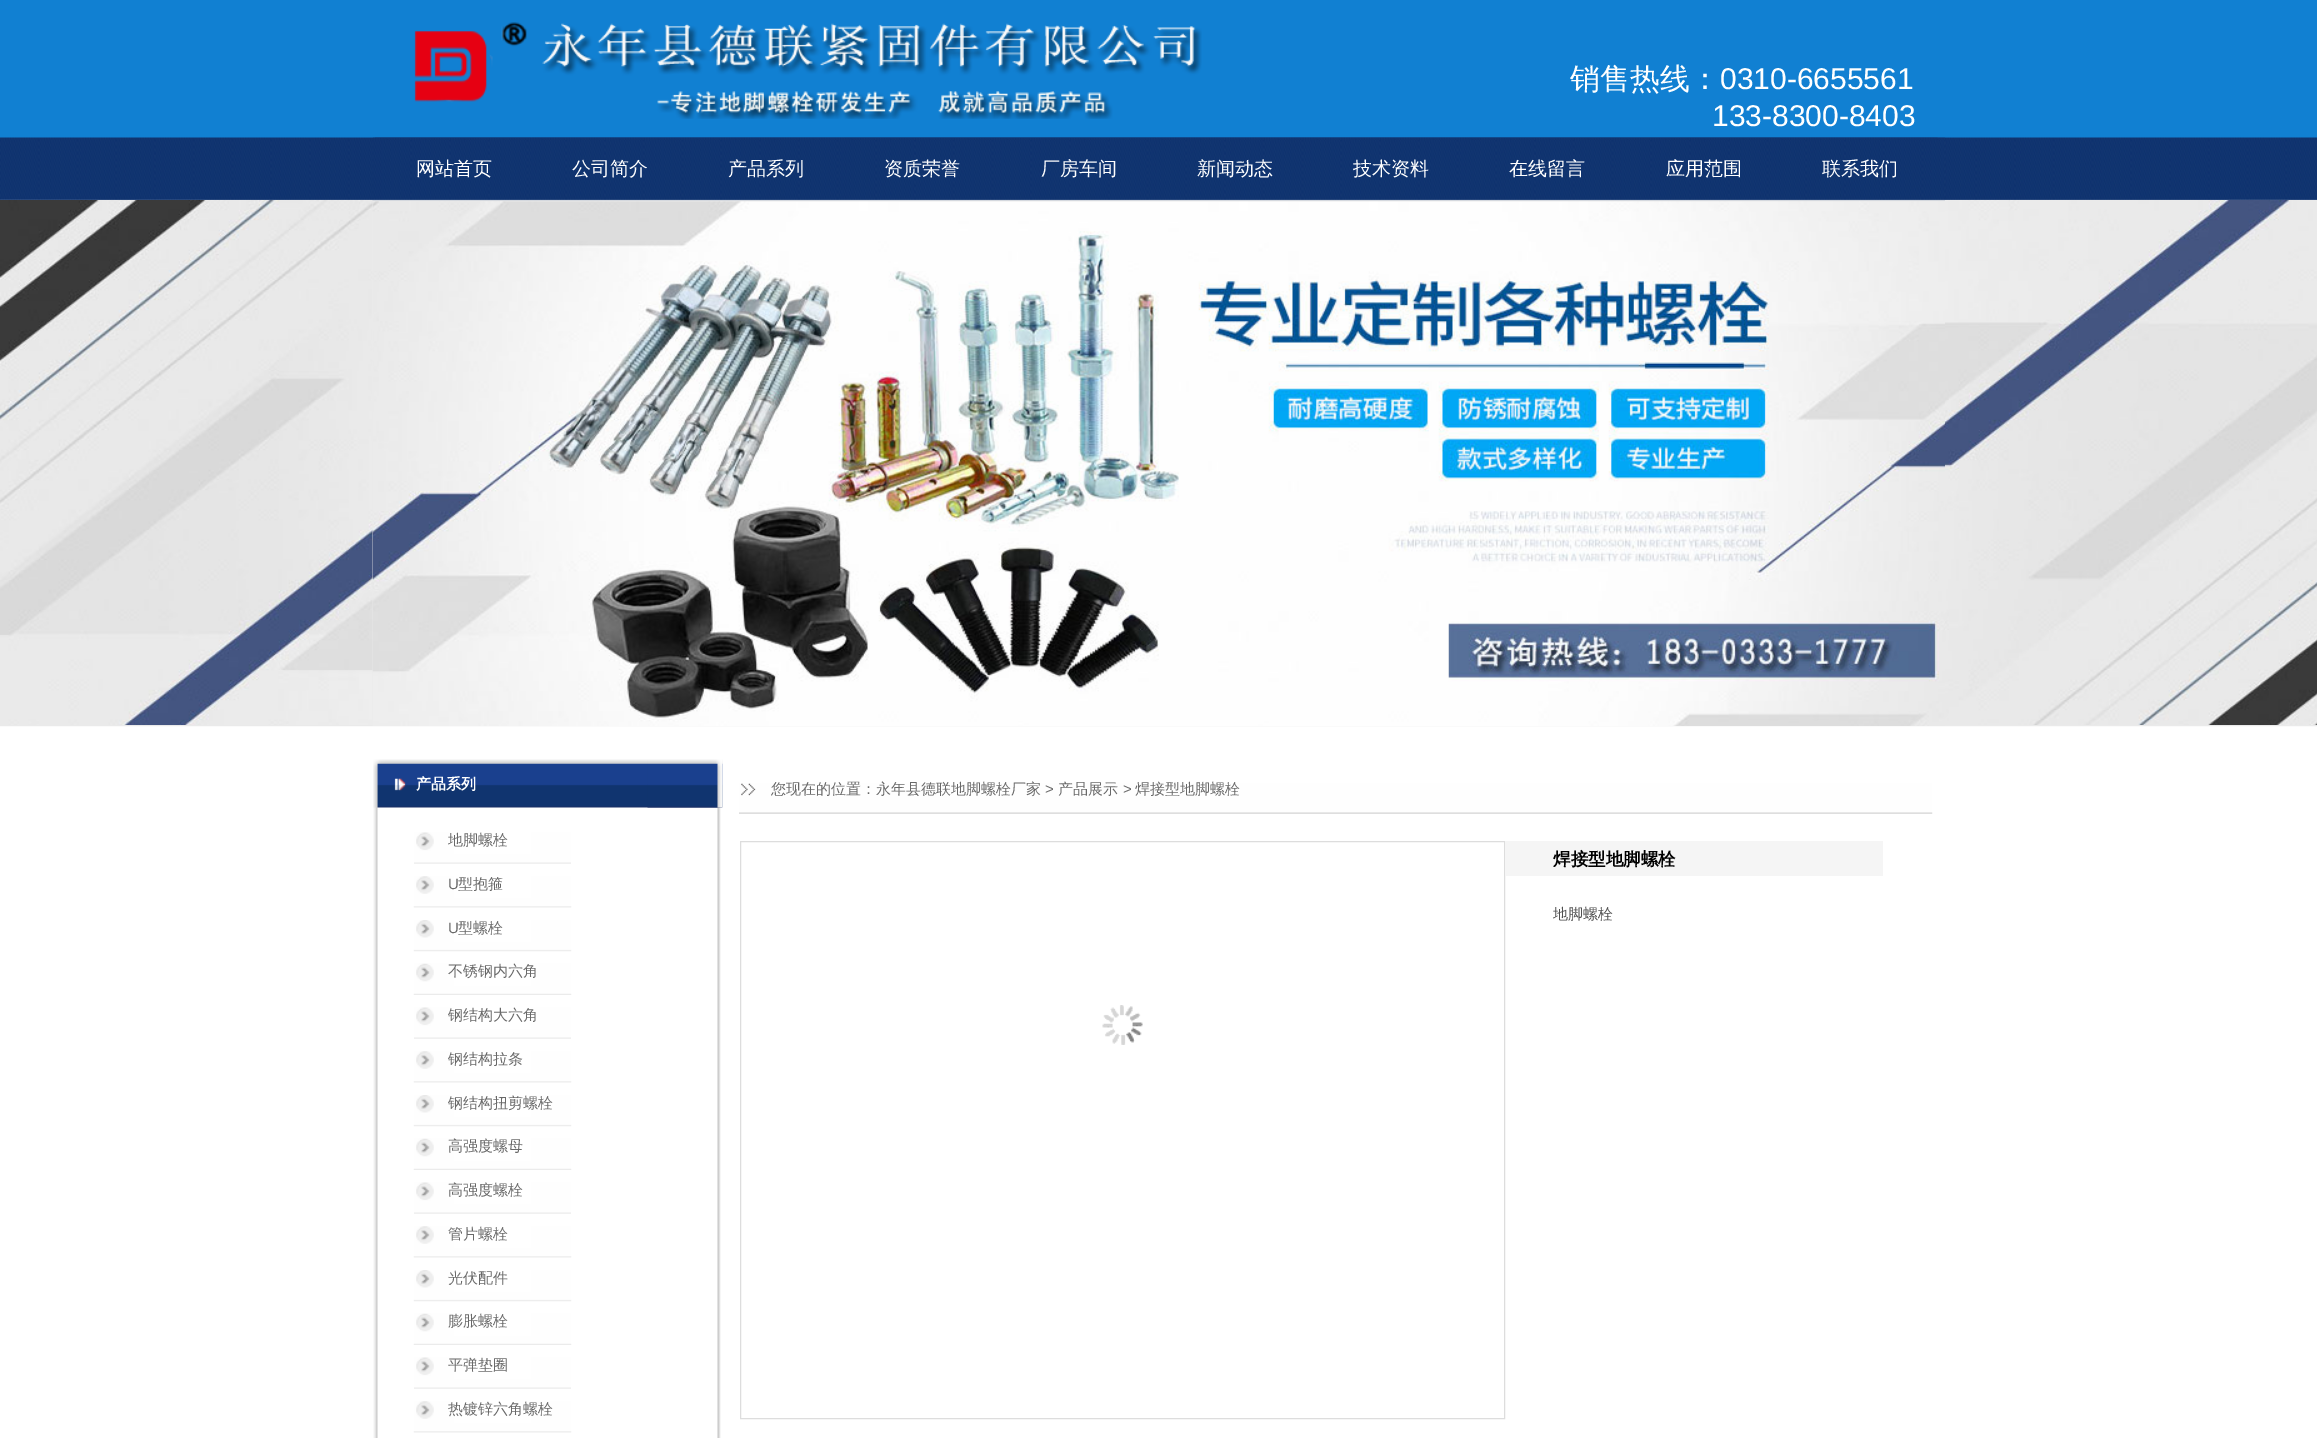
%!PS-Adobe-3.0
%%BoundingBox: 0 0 2317 1438
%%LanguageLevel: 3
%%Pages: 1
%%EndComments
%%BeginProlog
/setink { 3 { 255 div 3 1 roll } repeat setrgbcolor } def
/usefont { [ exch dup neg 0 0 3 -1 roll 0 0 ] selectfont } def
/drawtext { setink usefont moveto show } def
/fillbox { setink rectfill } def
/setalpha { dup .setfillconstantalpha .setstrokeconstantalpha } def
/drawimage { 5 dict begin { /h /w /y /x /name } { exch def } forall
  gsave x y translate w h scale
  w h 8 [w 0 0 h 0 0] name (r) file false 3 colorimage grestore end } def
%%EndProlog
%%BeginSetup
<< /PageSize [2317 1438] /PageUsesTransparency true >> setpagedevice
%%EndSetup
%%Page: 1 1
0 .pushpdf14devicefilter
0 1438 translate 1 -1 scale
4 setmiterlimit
0 0 2317 1438 255 255 255 fillbox
(assets/img1.rgb) 0 0 2317 727 drawimage
(assets/img20.rgb) 0 200 2317 525 drawimage
(assets/img2.rgb) 372 140 1573 585 drawimage
(assets/img3.rgb) 414 22 788 97 drawimage
(销售热线：) 1570 89 /WenQuanYiZenHei-Medium 30 255 255 255 drawtext
(0310-6655561) 1720 89 /LiberationSans-Regular 30 255 255 255 drawtext
(133-8300-8403) 1712 126 /LiberationSans-Regular 30 255 255 255 drawtext
0.25 setalpha
373 137 1572 1 16 52 112 fillbox
1 setalpha
375 137 156 1 16 73 139 fillbox
(网站首页) 416 175 /WenQuanYiZenHei-Medium 19 255 255 255 drawtext
(assets/img4.rgb) 531 137 157 1 drawimage
(公司简介) 572 175 /WenQuanYiZenHei-Medium 19 255 255 255 drawtext
(assets/img5.rgb) 687 137 157 1 drawimage
(产品系列) 728 175 /WenQuanYiZenHei-Medium 19 255 255 255 drawtext
844 137 312 1 16 73 139 fillbox
(资质荣誉) 884 175 /WenQuanYiZenHei-Medium 19 255 255 255 drawtext
(厂房车间) 1041 175 /WenQuanYiZenHei-Medium 19 255 255 255 drawtext
(assets/img6.rgb) 1156 137 157 1 drawimage
(新闻动态) 1197 175 /WenQuanYiZenHei-Medium 19 255 255 255 drawtext
(assets/img7.rgb) 1312 137 157 1 drawimage
(技术资料) 1353 175 /WenQuanYiZenHei-Medium 19 255 255 255 drawtext
1469 137 312 1 16 73 139 fillbox
(在线留言) 1509 175 /WenQuanYiZenHei-Medium 19 255 255 255 drawtext
(应用范围) 1666 175 /WenQuanYiZenHei-Medium 19 255 255 255 drawtext
(assets/img8.rgb) 1781 137 157 1 drawimage
(联系我们) 1822 175 /WenQuanYiZenHei-Medium 19 255 255 255 drawtext
(assets/img9.rgb) 372 201 1573 525 drawimage
(assets/img10.rgb) 373 807 5 631 drawimage
(assets/img11.rgb) 717 807 4 631 drawimage
(assets/img12.rgb) 373 759 350 49 drawimage
(产品系列) 416 789 /WenQuanYiZenHei-Bold 15 255 255 255 drawtext
(assets/img13.rgb) 647 759 76 49 drawimage
(assets/img14.rgb) 414 832 157 32 drawimage
(地脚螺栓) 448 845 /WenQuanYiZenHei-Medium 15 105 105 105 drawtext
(assets/img15.rgb) 413 876 159 32 drawimage
(U) 448 889 /LiberationSans-Regular 15 105 105 105 drawtext
(型抱箍) 458 889 /WenQuanYiZenHei-Medium 15 105 105 105 drawtext
(assets/img16.rgb) 413 920 159 32 drawimage
(U) 448 933 /LiberationSans-Regular 15 105 105 105 drawtext
(型螺栓) 458 933 /WenQuanYiZenHei-Medium 15 105 105 105 drawtext
(assets/img17.rgb) 413 963 159 32 drawimage
(不锈钢内六角) 448 976 /WenQuanYiZenHei-Medium 15 105 105 105 drawtext
(assets/img14.rgb) 414 1007 157 32 drawimage
(钢结构大六角) 448 1020 /WenQuanYiZenHei-Medium 15 105 105 105 drawtext
(assets/img15.rgb) 413 1051 159 32 drawimage
(钢结构拉条) 448 1064 /WenQuanYiZenHei-Medium 15 105 105 105 drawtext
(assets/img16.rgb) 413 1095 159 32 drawimage
(钢结构扭剪螺栓) 448 1108 /WenQuanYiZenHei-Medium 15 105 105 105 drawtext
(assets/img17.rgb) 413 1138 159 32 drawimage
(高强度螺母) 448 1151 /WenQuanYiZenHei-Medium 15 105 105 105 drawtext
(assets/img14.rgb) 414 1182 157 32 drawimage
(高强度螺栓) 448 1195 /WenQuanYiZenHei-Medium 15 105 105 105 drawtext
(assets/img15.rgb) 413 1226 159 32 drawimage
(管片螺栓) 448 1239 /WenQuanYiZenHei-Medium 15 105 105 105 drawtext
(assets/img16.rgb) 413 1270 159 32 drawimage
(光伏配件) 448 1283 /WenQuanYiZenHei-Medium 15 105 105 105 drawtext
(assets/img17.rgb) 413 1313 159 32 drawimage
(膨胀螺栓) 448 1326 /WenQuanYiZenHei-Medium 15 105 105 105 drawtext
(assets/img14.rgb) 414 1357 157 32 drawimage
(平弹垫圈) 448 1370 /WenQuanYiZenHei-Medium 15 105 105 105 drawtext
(assets/img15.rgb) 413 1401 159 32 drawimage
(热镀锌六角螺栓) 448 1414 /WenQuanYiZenHei-Medium 15 105 105 105 drawtext
(assets/img18.rgb) 739 783 1194 31 drawimage
(您现在的位置：永年县德联地脚螺栓厂家) 771 794 /WenQuanYiZenHei-Medium 15 105 105 105 drawtext
(>) 1045 794 /LiberationSans-Regular 15 105 105 105 drawtext
(产品展示) 1058 794 /WenQuanYiZenHei-Medium 15 105 105 105 drawtext
(>) 1123 794 /LiberationSans-Regular 15 105 105 105 drawtext
(焊接型地脚螺栓) 1135 794 /WenQuanYiZenHei-Medium 15 105 105 105 drawtext
221 221 221 setink
740.5 841.5 764 577 rectstroke
(assets/img19.rgb) 1102 1005 41 40 drawimage
1505 841 378 35 245 245 245 fillbox
(焊接型地脚螺栓) 1553 865 /WenQuanYiZenHei-Bold 17.5 0 0 0 drawtext
(地脚螺栓) 1553 919 /WenQuanYiZenHei-Medium 15 80 80 80 drawtext
.poppdf14devicefilter showpage
%%EOF
